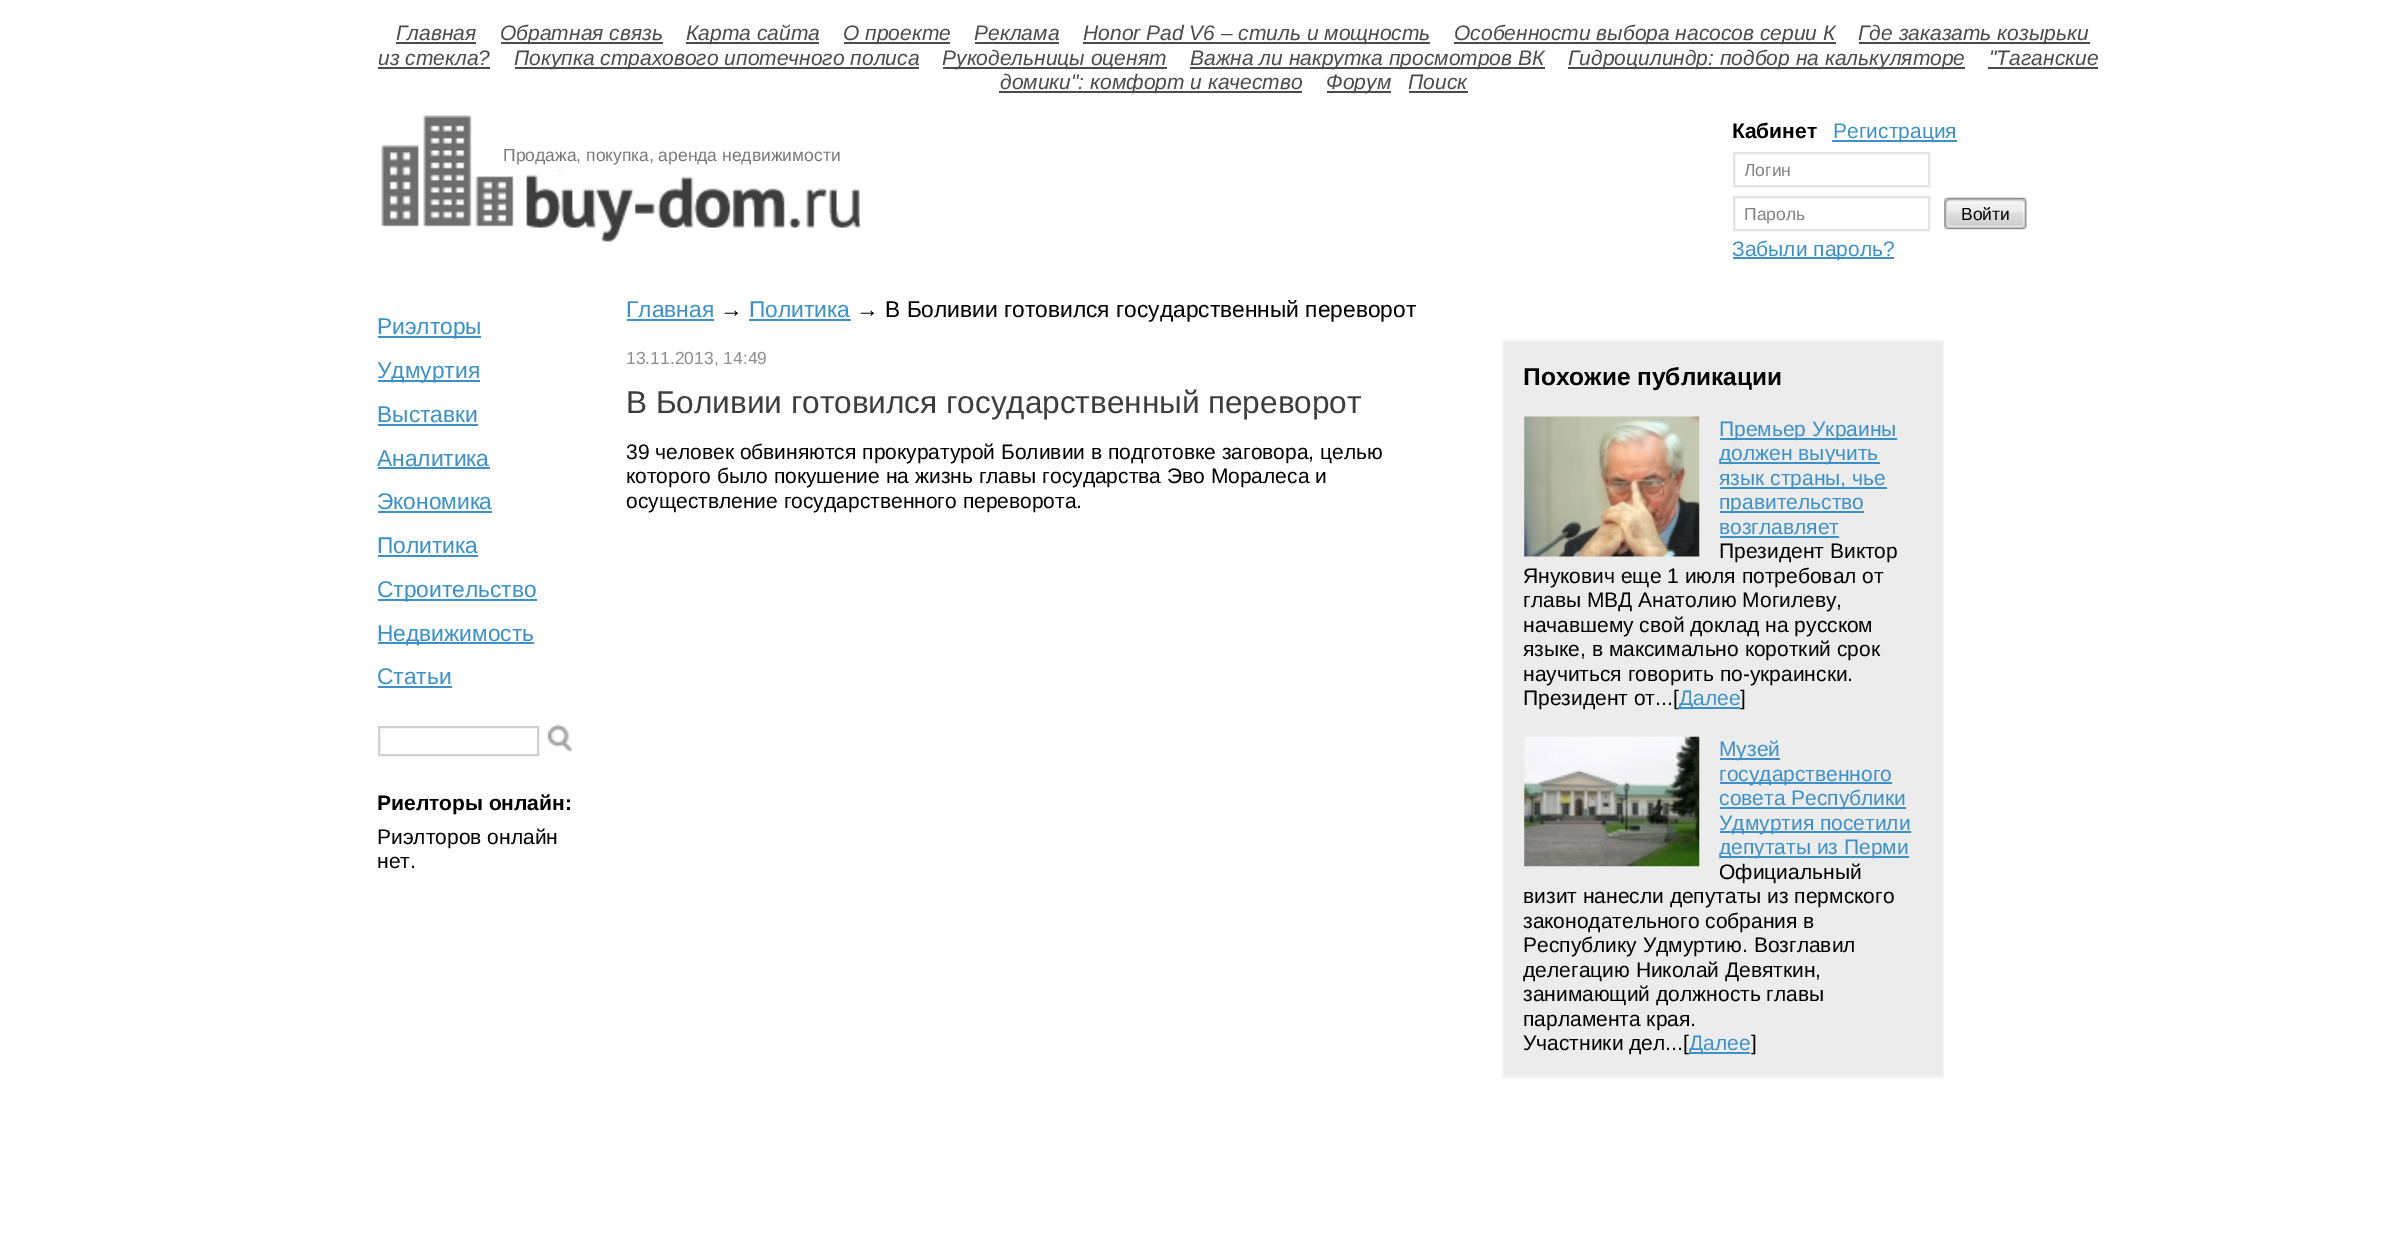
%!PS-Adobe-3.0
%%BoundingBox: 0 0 2405 1240
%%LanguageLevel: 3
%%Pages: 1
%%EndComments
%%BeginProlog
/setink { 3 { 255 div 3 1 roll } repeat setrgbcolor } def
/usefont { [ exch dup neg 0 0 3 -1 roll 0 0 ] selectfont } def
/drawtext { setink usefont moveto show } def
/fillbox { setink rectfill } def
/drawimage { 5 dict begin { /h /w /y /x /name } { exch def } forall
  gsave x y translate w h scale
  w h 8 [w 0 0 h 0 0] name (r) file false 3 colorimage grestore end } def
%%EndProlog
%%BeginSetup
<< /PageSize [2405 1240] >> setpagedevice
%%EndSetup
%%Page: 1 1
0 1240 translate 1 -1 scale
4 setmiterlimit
0 0 2405 1240 255 255 255 fillbox
(Главная) 396 40 /LiberationSans-Italic 21 75 75 75 drawtext
396 42 80 2 75 75 75 fillbox
501 42 162 2 75 75 75 fillbox
(Обратная связь) 500 40 /LiberationSans-Italic 21 75 75 75 drawtext
686 42 133 2 75 75 75 fillbox
(Карта сайта) 686 40 /LiberationSans-Italic 21 75 75 75 drawtext
844 42 106 2 75 75 75 fillbox
(О проекте) 843 40 /LiberationSans-Italic 21 75 75 75 drawtext
(Реклама) 974 40 /LiberationSans-Italic 21 75 75 75 drawtext
975 42 84 2 75 75 75 fillbox
1083 42 347 2 75 75 75 fillbox
(Honor Pad V6 – стиль и мощность) 1083 40 /LiberationSans-Italic 21 75 75 75 drawtext
1454 42 382 2 75 75 75 fillbox
(Особенности выбора насосов серии К) 1454 40 /LiberationSans-Italic 21 75 75 75 drawtext
1859 42 231 2 75 75 75 fillbox
(Где заказать козырьки) 1858 40 /LiberationSans-Italic 21 75 75 75 drawtext
(из стекла?) 378 65 /LiberationSans-Italic 21 75 75 75 drawtext
378 67 112 2 75 75 75 fillbox
515 67 404 2 75 75 75 fillbox
(Покупка страхового ипотечного полиса) 514 65 /LiberationSans-Italic 21 75 75 75 drawtext
943 67 224 2 75 75 75 fillbox
(Рукодельницы оценят) 942 65 /LiberationSans-Italic 21 75 75 75 drawtext
1190 67 355 2 75 75 75 fillbox
(Важна ли накрутка просмотров ВК) 1190 65 /LiberationSans-Italic 21 75 75 75 drawtext
1568 67 397 2 75 75 75 fillbox
(Гидроцилиндр: подбор на калькуляторе) 1568 65 /LiberationSans-Italic 21 75 75 75 drawtext
("Таганские) 1989 65 /LiberationSans-Italic 21 75 75 75 drawtext
1988 67 110 2 75 75 75 fillbox
999 91 303 2 75 75 75 fillbox
(домики": комфорт и качество) 1000 89 /LiberationSans-Italic 21 75 75 75 drawtext
1327 91 64 2 75 75 75 fillbox
(Форум) 1326 89 /LiberationSans-Italic 21 75 75 75 drawtext
(Поиск) 1408 89 /LiberationSans-Italic 21 75 75 75 drawtext
1409 91 59 2 75 75 75 fillbox
(assets/img1.rgb) 381 115 480 127 drawimage
(Продажа, покупка, аренда недвижимости) 503 161 /LiberationSans-Regular 17.5 119 119 119 drawtext
(Кабинет) 1732 138 /LiberationSans-Bold 21 0 0 0 drawtext
1832 140 125 2 61 145 199 fillbox
(Регистрация) 1833 138 /LiberationSans-Regular 21 61 145 199 drawtext
226 228 234 setink
2 setlinewidth
1734 153 195 33 rectstroke
gsave
1745 161 180 19 rectclip
(Логин) 1744 176 /LiberationSans-Regular 17.5 129 129 129 drawtext
grestore
1734 197 195 33 rectstroke
(Пароль) 1744 220 /LiberationSans-Regular 17.5 129 129 129 drawtext
(assets/img2.rgb) 1944 197 83 33 drawimage
(Войти) 1961 220 /LiberationSans-Regular 17.5 0 0 0 drawtext
1733 257 161 2 61 145 199 fillbox
(Забыли пароль?) 1732 256 /LiberationSans-Regular 21 61 145 199 drawtext
378 336 103 2 61 145 199 fillbox
(Риэлторы) 377 334 /LiberationSans-Regular 22.75 61 145 199 drawtext
378 380 102 2 61 145 199 fillbox
(Удмуртия) 377 378 /LiberationSans-Regular 22.75 61 145 199 drawtext
(Выставки) 377 422 /LiberationSans-Regular 22.75 61 145 199 drawtext
378 424 100 2 61 145 199 fillbox
(Аналитика) 377 466 /LiberationSans-Regular 22.75 61 145 199 drawtext
378 467 112 2 61 145 199 fillbox
(Экономика) 377 509 /LiberationSans-Regular 22.75 61 145 199 drawtext
378 511 114 2 61 145 199 fillbox
(Политика) 377 553 /LiberationSans-Regular 22.75 61 145 199 drawtext
378 555 100 2 61 145 199 fillbox
378 599 159 2 61 145 199 fillbox
(Строительство) 377 597 /LiberationSans-Regular 22.75 61 145 199 drawtext
378 642 156 2 61 145 199 fillbox
(Недвижимость) 377 641 /LiberationSans-Regular 22.75 61 145 199 drawtext
(Статьи) 377 684 /LiberationSans-Regular 22.75 61 145 199 drawtext
378 686 74 2 61 145 199 fillbox
208 208 208 setink
379 727 159 28 rectstroke
(assets/img3.rgb) 547 724 26 29 drawimage
(Риелторы онлайн:) 377 810 /LiberationSans-Bold 21 0 0 0 drawtext
(Риэлторов онлайн) 377 844 /LiberationSans-Regular 21 0 0 0 drawtext
(нет.) 377 868 /LiberationSans-Regular 21 0 0 0 drawtext
(Главная) 626 317 /LiberationSans-Regular 22.75 61 145 199 drawtext
627 319 87 2 61 145 199 fillbox
(→) 720 317 /LiberationSans-Regular 22.75 0 0 0 drawtext
(Политика) 749 317 /LiberationSans-Regular 22.75 61 145 199 drawtext
749 319 102 2 61 145 199 fillbox
(→ В Боливии готовился государственный переворот) 856 317 /LiberationSans-Regular 22.75 0 0 0 drawtext
(13.11.2013, 14:49) 626 364 /LiberationSans-Regular 17.5 143 143 143 drawtext
(В Боливии готовился государственный переворот) 626 413 /LiberationSans-Regular 31.5 61 61 61 drawtext
(39 человек обвиняются прокуратурой Боливии в подготовке заговора, целью) 626 459 /LiberationSans-Regular 21 0 0 0 drawtext
(которого было покушение на жизнь главы государства Эво Моралеса и) 626 483 /LiberationSans-Regular 21 0 0 0 drawtext
(осуществление государственного переворота.) 626 508 /LiberationSans-Regular 21 0 0 0 drawtext
236 236 236 setink
1503 341 moveto 1943 341 lineto 1943 1077 lineto 1503 1077 lineto closepath gsave fill grestore
243 243 243 setink
stroke
(Похожие публикации) 1523 385 /LiberationSans-Bold 24.5 0 0 0 drawtext
(assets/img4.rgb) 1524 416 176 141 drawimage
1720 438 177 2 61 145 199 fillbox
(Премьер Украины) 1719 436 /LiberationSans-Regular 21 61 145 199 drawtext
1720 462 160 2 61 145 199 fillbox
(должен выучить) 1719 460 /LiberationSans-Regular 21 61 145 199 drawtext
1720 487 167 2 61 145 199 fillbox
(язык страны, чье) 1719 485 /LiberationSans-Regular 21 61 145 199 drawtext
1720 511 144 2 61 145 199 fillbox
(правительство) 1719 509 /LiberationSans-Regular 21 61 145 199 drawtext
(возглавляет) 1719 534 /LiberationSans-Regular 21 61 145 199 drawtext
1720 536 119 2 61 145 199 fillbox
(Президент Виктор) 1719 558 /LiberationSans-Regular 21 0 0 0 drawtext
(Янукович еще 1 июля потребовал от) 1523 583 /LiberationSans-Regular 21 0 0 0 drawtext
(главы МВД Анатолию Могилеву,) 1523 607 /LiberationSans-Regular 21 0 0 0 drawtext
(начавшему свой доклад на русском) 1523 632 /LiberationSans-Regular 21 0 0 0 drawtext
(языке, в максимально короткий срок) 1523 656 /LiberationSans-Regular 21 0 0 0 drawtext
(научиться говорить по-украински.) 1523 681 /LiberationSans-Regular 21 0 0 0 drawtext
(Президент от...[) 1523 705 /LiberationSans-Regular 21 0 0 0 drawtext
1678 707 62 2 61 145 199 fillbox
(Далее) 1679 705 /LiberationSans-Regular 21 61 145 199 drawtext
(]) 1740 705 /LiberationSans-Regular 21 0 0 0 drawtext
(assets/img5.rgb) 1524 736 176 131 drawimage
1720 758 60 2 61 145 199 fillbox
(Музей) 1719 756 /LiberationSans-Regular 21 61 145 199 drawtext
1720 782 172 2 61 145 199 fillbox
(государственного) 1719 781 /LiberationSans-Regular 21 61 145 199 drawtext
1720 807 186 2 61 145 199 fillbox
(совета Республики) 1719 805 /LiberationSans-Regular 21 61 145 199 drawtext
1720 831 191 2 61 145 199 fillbox
(Удмуртия посетили) 1719 830 /LiberationSans-Regular 21 61 145 199 drawtext
1720 856 189 2 61 145 199 fillbox
(депутаты из Перми) 1719 854 /LiberationSans-Regular 21 61 145 199 drawtext
(Официальный) 1719 879 /LiberationSans-Regular 21 0 0 0 drawtext
(визит нанесли депутаты из пермского) 1523 903 /LiberationSans-Regular 21 0 0 0 drawtext
(законодательного собрания в) 1523 928 /LiberationSans-Regular 21 0 0 0 drawtext
(Республику Удмуртию. Возглавил) 1523 952 /LiberationSans-Regular 21 0 0 0 drawtext
(делегацию Николай Девяткин,) 1523 977 /LiberationSans-Regular 21 0 0 0 drawtext
(занимающий должность главы) 1523 1001 /LiberationSans-Regular 21 0 0 0 drawtext
(парламента края.) 1523 1026 /LiberationSans-Regular 21 0 0 0 drawtext
(Участники дел...[) 1523 1050 /LiberationSans-Regular 21 0 0 0 drawtext
1689 1052 61 2 61 145 199 fillbox
(Далее) 1689 1050 /LiberationSans-Regular 21 61 145 199 drawtext
(]) 1751 1050 /LiberationSans-Regular 21 0 0 0 drawtext
showpage
%%EOF
